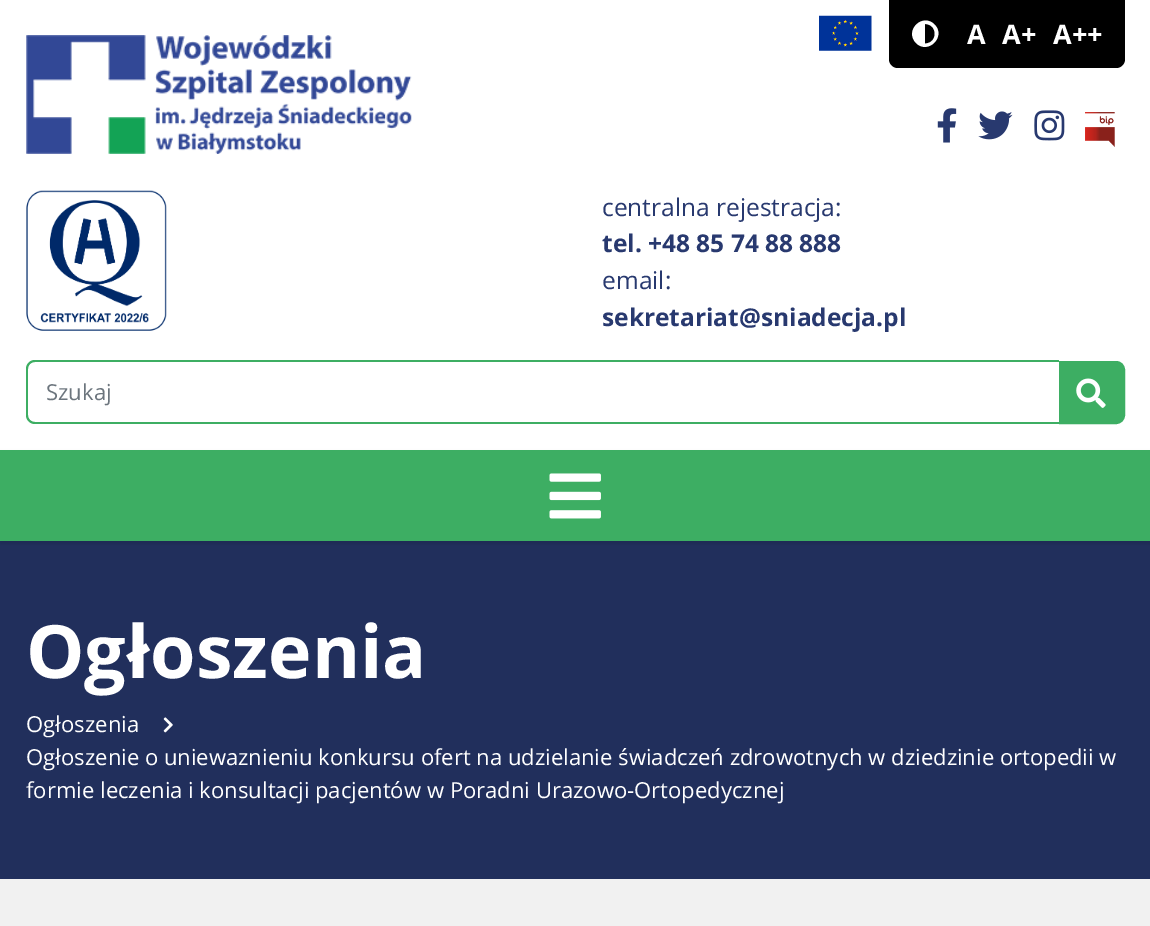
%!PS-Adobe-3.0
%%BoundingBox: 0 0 1150 926
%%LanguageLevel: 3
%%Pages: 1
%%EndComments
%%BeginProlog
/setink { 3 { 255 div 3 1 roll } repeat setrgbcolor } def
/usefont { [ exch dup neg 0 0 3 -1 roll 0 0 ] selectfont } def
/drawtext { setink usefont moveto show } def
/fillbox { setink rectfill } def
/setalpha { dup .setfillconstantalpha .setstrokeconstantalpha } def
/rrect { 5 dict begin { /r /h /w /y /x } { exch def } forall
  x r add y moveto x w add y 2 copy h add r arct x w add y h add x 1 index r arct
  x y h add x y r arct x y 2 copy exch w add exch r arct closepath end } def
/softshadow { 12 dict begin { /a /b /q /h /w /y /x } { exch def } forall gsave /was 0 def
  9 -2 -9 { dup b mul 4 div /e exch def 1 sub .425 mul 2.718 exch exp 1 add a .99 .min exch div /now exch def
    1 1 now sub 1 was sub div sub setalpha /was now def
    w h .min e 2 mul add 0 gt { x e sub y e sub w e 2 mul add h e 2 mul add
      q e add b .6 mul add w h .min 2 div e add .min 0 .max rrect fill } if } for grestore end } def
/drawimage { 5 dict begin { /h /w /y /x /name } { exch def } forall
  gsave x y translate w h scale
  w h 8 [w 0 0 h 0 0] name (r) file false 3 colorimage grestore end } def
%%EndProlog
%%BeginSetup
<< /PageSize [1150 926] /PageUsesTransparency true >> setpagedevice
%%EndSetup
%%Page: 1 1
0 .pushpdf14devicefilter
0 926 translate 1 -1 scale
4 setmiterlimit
0 0 1150 926 241 241 241 fillbox
0 0 1150 450 255 255 255 fillbox
(assets/img1.rgb) 26 35 386 119 drawimage
(assets/img2.rgb) 819 15 53 36 drawimage
0 0 0 setink
889 0 moveto 1125 0 lineto 1125 59 lineto 1125 64 1121 68 1116 68 curveto 898 68 lineto 893 68 889 64 889 59 curveto closepath fill
255 255 255 setink
916 43 moveto 904 30.5 922.5 12.5 934.5 24.5 curveto 946.5 36.5 928 55 916 43 curveto closepath 925 43.5 moveto 938 43.5 938 24 925 24 curveto closepath fill
(A) 967 44 /OpenSans-Bold 27 255 255 255 drawtext
(A+) 1002 44 /OpenSans-Bold 27 255 255 255 drawtext
(A++) 1053 44 /OpenSans-Bold 27 255 255 255 drawtext
(assets/img3.rgb) 937 108 20 35 drawimage
(assets/img4.rgb) 978 111 35 29 drawimage
(assets/img5.rgb) 1034 110 31 31 drawimage
(assets/img6.rgb) 1085 112 30 35 drawimage
(assets/img7.rgb) 26 190 141 141 drawimage
(centralna rejestracja:) 602 216 /OpenSans-Regular 24.5 40 57 111 drawtext
(tel. +48 85 74 88 888) 602 252 /OpenSans-Bold 24.5 40 57 111 drawtext
(email:) 602 289 /OpenSans-Regular 24.5 40 57 111 drawtext
(sekretariat@sniadecja.pl) 602 326 /OpenSans-Bold 24.5 40 57 111 drawtext
61 174 99 setink
35 360 moveto 1059 360 lineto 1059 424 lineto 35 424 lineto 30 424 26 420 26 415 curveto 26 369 lineto 26 364 30 360 35 360 curveto closepath 35 362 moveto 1059 362 lineto 1059 422 lineto 35 422 lineto 31 422 28 419 28 415 curveto 28 369 lineto 28 365 31 362 35 362 curveto closepath eofill
(Szukaj) 46 400 /OpenSans-Regular 22.05 108 117 125 drawtext
61 174 99 setink
1060 362 moveto 1116 362 lineto 1120.5 362 1124 365.5 1124 370 curveto 1124 415 lineto 1124 419.5 1120.5 423 1116 423 curveto 1060 423 lineto closepath gsave fill grestore
2 setlinewidth
stroke
(assets/img8.rgb) 1076 378 30 30 drawimage
0 541 1150 338 33 47 92 fillbox
0 0 0 setink
0 453 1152 91 0 2 0.1 softshadow
0 450 1150 91 61 174 99 fillbox
(assets/img9.rgb) 549 473 52 46 drawimage
(Ogłoszenia) 26 678 /OpenSans-Bold 73.5 255 255 255 drawtext
(Ogłoszenia) 26 732 /OpenSans-Regular 22.05 255 255 255 drawtext
(assets/img10.rgb) 163 717 10 16 drawimage
(Ogłoszenie o uniewaznieniu konkursu ofert na udzielanie świadczeń zdrowotnych w dziedzinie ortopedii w) 26 765 /OpenSans-Regular 22.05 255 255 255 drawtext
(formie leczenia i konsultacji pacjentów w Poradni Urazowo-Ortopedycznej) 26 798 /OpenSans-Regular 22.05 255 255 255 drawtext
.poppdf14devicefilter showpage
%%EOF
